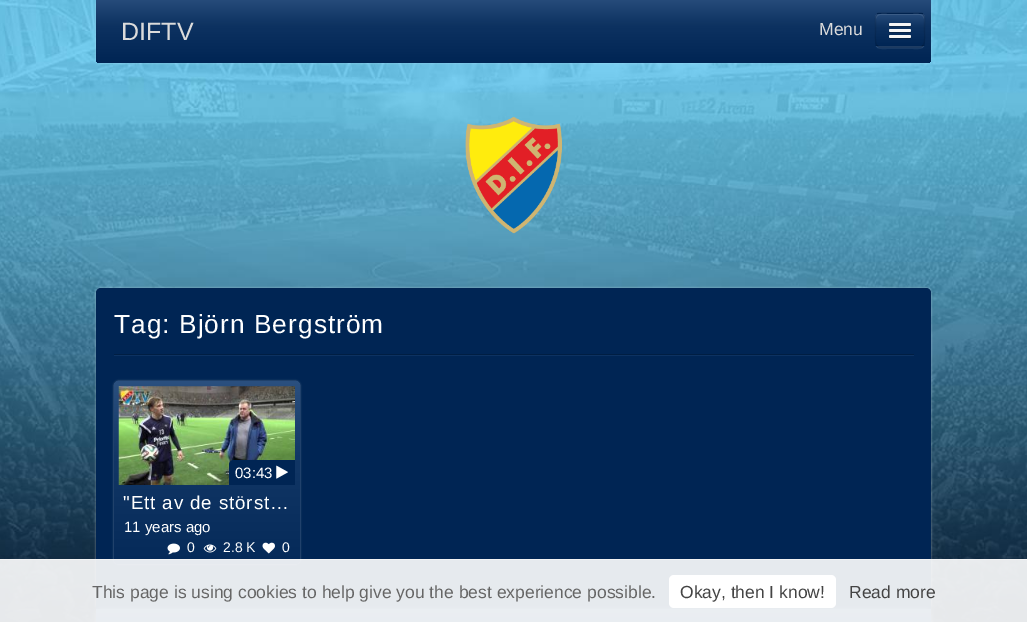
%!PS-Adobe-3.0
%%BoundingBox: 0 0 1027 622
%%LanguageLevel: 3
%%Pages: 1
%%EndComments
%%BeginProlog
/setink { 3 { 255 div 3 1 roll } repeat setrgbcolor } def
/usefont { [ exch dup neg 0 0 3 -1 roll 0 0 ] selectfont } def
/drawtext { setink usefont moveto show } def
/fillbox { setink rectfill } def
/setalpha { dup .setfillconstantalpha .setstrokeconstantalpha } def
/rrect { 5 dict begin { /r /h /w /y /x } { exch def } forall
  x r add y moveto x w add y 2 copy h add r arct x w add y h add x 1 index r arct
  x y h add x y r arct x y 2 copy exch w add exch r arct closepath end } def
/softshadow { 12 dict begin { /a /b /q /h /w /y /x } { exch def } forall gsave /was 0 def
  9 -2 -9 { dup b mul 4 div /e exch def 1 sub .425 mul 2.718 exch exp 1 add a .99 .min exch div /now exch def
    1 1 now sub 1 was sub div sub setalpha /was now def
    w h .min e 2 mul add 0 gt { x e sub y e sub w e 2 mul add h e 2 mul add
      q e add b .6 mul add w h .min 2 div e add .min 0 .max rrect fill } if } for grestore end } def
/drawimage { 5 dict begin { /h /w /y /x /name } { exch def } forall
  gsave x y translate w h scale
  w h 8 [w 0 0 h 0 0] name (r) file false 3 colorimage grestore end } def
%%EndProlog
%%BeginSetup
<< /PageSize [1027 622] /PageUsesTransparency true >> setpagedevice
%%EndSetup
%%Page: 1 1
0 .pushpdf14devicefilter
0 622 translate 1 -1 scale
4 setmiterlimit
0 0 1027 622 255 255 255 fillbox
(assets/img1.rgb) 0 0 1027 622 drawimage
96 0 835 63 5 1 0.3 softshadow
gsave 96 0 moveto 931 0 lineto 931 58 lineto 931 61 929 63 926 63 curveto 101 63 lineto 98 63 96 61 96 58 curveto closepath clip newpath
<< /ShadingType 2 /ColorSpace /DeviceRGB /Coords [514 0 514 63] /Extend [true true] /Function << /FunctionType 3 /Domain [0 1] /Functions [<< /FunctionType 2 /Domain [0 1] /C0 [0.149 0.294 0.478] /C1 [0.051 0.196 0.38] /N 1 >> << /FunctionType 2 /Domain [0 1] /C0 [0.051 0.196 0.38] /C1 [0 0.145 0.329] /N 1 >>] /Bounds [0.4] /Encode [0 1 0 1] >> >> shfill grestore
(DIFTV) 121 40 /LiberationSans-Regular 25 219 219 219 drawtext
(Menu) 819 35 /LiberationSans-Regular 17.5 219 219 219 drawtext
24 58 101 setink
875 42 moveto 875 50 880 49 887 49 curveto 913 49 lineto 920 49 925 50 925 42 curveto 925 45 923 48 920 48 curveto 880 48 lineto 877 48 875 45 875 42 curveto closepath fill
gsave
875 13 50 35 5 rrect clip newpath
gsave 875 13 moveto 925 13 lineto 925 14 lineto 875 14 lineto closepath clip newpath
<< /ShadingType 2 /ColorSpace /DeviceRGB /Coords [900 -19 900 14] /Extend [true true] /Function << /FunctionType 3 /Domain [0 1] /Functions [<< /FunctionType 2 /Domain [0 1] /C0 [0.149 0.294 0.478] /C1 [0.051 0.196 0.38] /N 1 >> << /FunctionType 2 /Domain [0 1] /C0 [0.051 0.196 0.38] /C1 [0 0.145 0.329] /N 1 >>] /Bounds [0.4] /Encode [0 1 0 1] >> >> shfill grestore
gsave 875 14 moveto 925 14 lineto 925 46 lineto 875 46 lineto closepath clip newpath
<< /ShadingType 2 /ColorSpace /DeviceRGB /Coords [900 14 900 46] /Extend [true true] /Function << /FunctionType 3 /Domain [0 1] /Functions [<< /FunctionType 2 /Domain [0 1] /C0 [0.149 0.294 0.478] /C1 [0.051 0.196 0.38] /N 1 >> << /FunctionType 2 /Domain [0 1] /C0 [0.051 0.196 0.38] /C1 [0 0.145 0.329] /N 1 >>] /Bounds [0.4] /Encode [0 1 0 1] >> >> shfill grestore
gsave 875 46 moveto 925 46 lineto 925 48 lineto 875 48 lineto closepath clip newpath
<< /ShadingType 2 /ColorSpace /DeviceRGB /Coords [900 46 900 79] /Extend [true true] /Function << /FunctionType 3 /Domain [0 1] /Functions [<< /FunctionType 2 /Domain [0 1] /C0 [0.149 0.294 0.478] /C1 [0.051 0.196 0.38] /N 1 >> << /FunctionType 2 /Domain [0 1] /C0 [0.051 0.196 0.38] /C1 [0 0.145 0.329] /N 1 >>] /Bounds [0.4] /Encode [0 1 0 1] >> >> shfill grestore
grestore
59 92 134 setink
880 15 moveto 920 15 lineto 922 15 924 17 924 19 curveto 924 13 918 14 913 14 curveto 887 14 lineto 882 14 876 13 876 19 curveto 876 17 878 15 880 15 curveto closepath fill
0.25 setalpha
0 0 0 setink
1.2 setlinewidth
923 45.5 moveto 922.5 46.5 921 47 920 47 curveto 880 47 lineto 879 47 877.5 46.5 877 45.5 curveto stroke
0.1 setalpha
877 45.5 moveto 874.5 43 875.5 33 875.5 30 curveto 875.5 21.5 lineto 875.5 18.5 875 14 879 13 curveto 921 13 lineto 925 14 924.5 18.5 924.5 21.5 curveto 924.5 30 lineto 924.5 33 925.5 43 923 45.5 curveto stroke
1 setalpha
11 39 74 setink
889 24.5 moveto 887.5 27.5 893 27 893.5 27 curveto 906.5 27 lineto 907 27 912.5 27.5 911 24.5 curveto 910 25 890 25 889 24.5 curveto closepath fill
245 245 245 setink
889 23 22 3 1.5 rrect fill
7 35 70 setink
889 31 moveto 888 33.5 893 33 893.5 33 curveto 906.5 33 lineto 907 33 912 33.5 911 31 curveto 910 31.5 890 31.5 889 31 curveto closepath fill
245 245 245 setink
889 29 22 3 1.5 rrect fill
4 32 67 setink
889 37 moveto 888.5 39.5 893 39 893.5 39 curveto 906.5 39 lineto 907 39 911.5 39.5 911 37 curveto 910 38 890 38 889 37 curveto closepath fill
245 245 245 setink
889 35 22 3 1.5 rrect fill
(assets/img2.rgb) 465 116 98 118 drawimage
255 255 255 setink
96 288 835 321 5 1 0.45 softshadow
0 37 84 setink
101 288 moveto 926 288 lineto 929 288 931 290 931 293 curveto 931 609 lineto 96 609 lineto 96 293 lineto 96 290 98 288 101 288 curveto closepath fill
/LiberationSans-Regular 26.25 usefont
255 255 255 setink
114 333 moveto 1.05 0 (Tag: Björn Bergström) ashow
114 354 800 1 0 30 67 fillbox
114 355 800 1 13 50 97 fillbox
255 255 255 setink
114 381 186 183 5 1 0.4 softshadow
gsave 114 381 186 183 5 rrect clip newpath
<< /ShadingType 2 /ColorSpace /DeviceRGB /Coords [207 381 207 564] /Extend [true true] /Function << /FunctionType 3 /Domain [0 1] /Functions [<< /FunctionType 2 /Domain [0 1] /C0 [0.169 0.314 0.498] /C1 [0.071 0.216 0.4] /N 1 >> << /FunctionType 2 /Domain [0 1] /C0 [0.071 0.216 0.4] /C1 [0.02 0.165 0.349] /N 1 >>] /Bounds [0.4] /Encode [0 1 0 1] >> >> shfill grestore
(assets/img3.rgb) 118 386 177 99 drawimage
0 37 84 setink
234 460 moveto 295 460 lineto 295 485 lineto 229 485 lineto 229 465 lineto 229 462 231 460 234 460 curveto closepath fill
(03:43) 235 478 /LiberationSans-Regular 15 255 255 255 drawtext
(assets/img4.rgb) 276 465 12 14 drawimage
/LiberationSans-Regular 18.75 usefont
123 509 moveto 0.9 0 ("Ett av de störst…) ashow
(11 years ago) 124 532 /LiberationSans-Regular 15 255 255 255 drawtext
(assets/img5.rgb) 167 543 13 12 drawimage
(0) 187 552 /LiberationSans-Regular 14 255 255 255 drawtext
(assets/img6.rgb) 203 544 14 9 drawimage
(2.8 K) 223 552 /LiberationSans-Regular 14 255 255 255 drawtext
(assets/img7.rgb) 262 542 13 12 drawimage
(0) 282 552 /LiberationSans-Regular 14 255 255 255 drawtext
96 610 835 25 5 2.5 0.3 softshadow
gsave 96 609 moveto 931 609 lineto 931 622 lineto 96 622 lineto closepath clip newpath
<< /ShadingType 2 /ColorSpace /DeviceRGB /Coords [514 609 514 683] /Extend [true true] /Function << /FunctionType 3 /Domain [0 1] /Functions [<< /FunctionType 2 /Domain [0 1] /C0 [0.169 0.314 0.498] /C1 [0.071 0.216 0.4] /N 1 >> << /FunctionType 2 /Domain [0 1] /C0 [0.071 0.216 0.4] /C1 [0.02 0.165 0.349] /N 1 >>] /Bounds [0.4] /Encode [0 1 0 1] >> >> shfill grestore
0.9 setalpha
0 560 1027 62 255 255 255 fillbox
1 setalpha
0 559 1027 1 243 243 243 fillbox
(This page is using cookies to help give you the best experience possible.) 92 598 /LiberationSans-Regular 17.5 102 102 102 drawtext
255 255 255 setink
669 575 167 33 5 rrect fill
(Okay, then I know!) 680 598 /LiberationSans-Regular 17.5 68 68 68 drawtext
(Read more) 849 598 /LiberationSans-Regular 17.5 68 68 68 drawtext
.poppdf14devicefilter showpage
%%EOF
